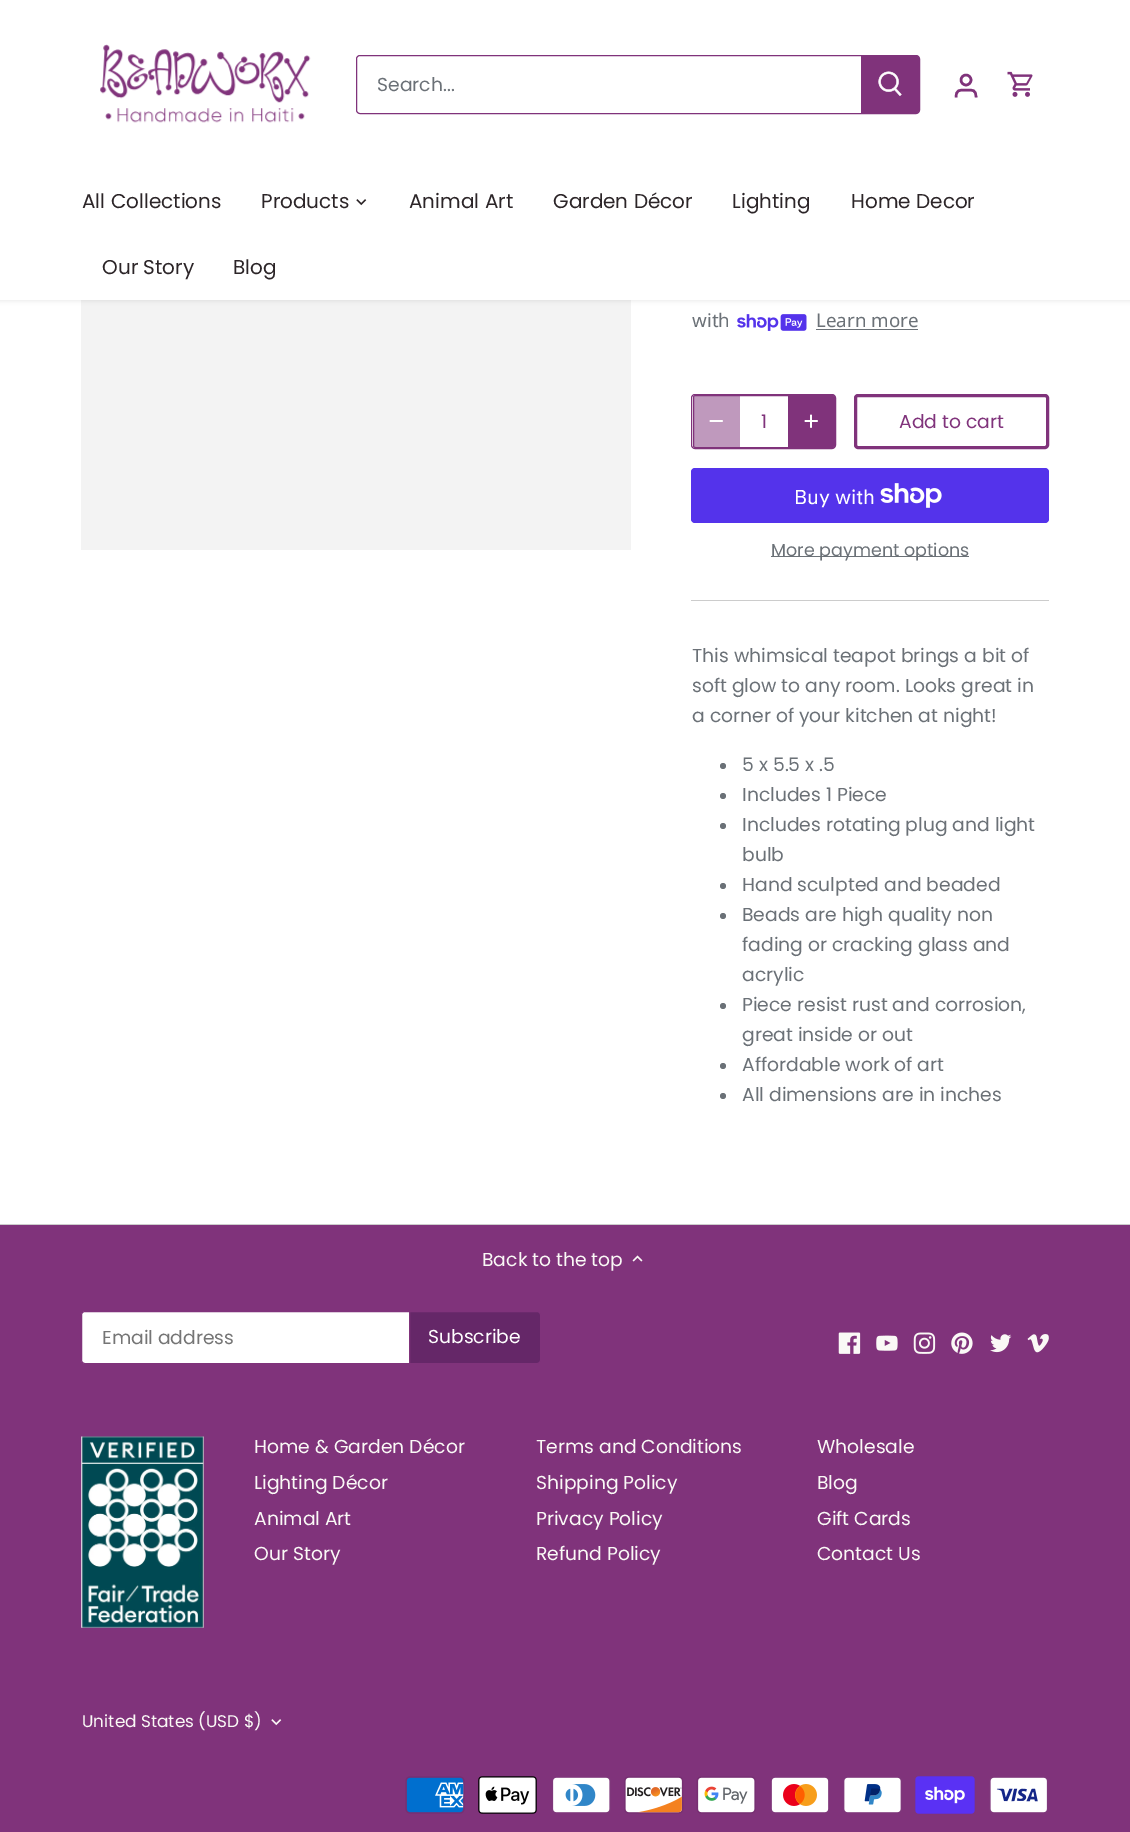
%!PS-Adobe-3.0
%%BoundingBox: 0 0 1130 1832
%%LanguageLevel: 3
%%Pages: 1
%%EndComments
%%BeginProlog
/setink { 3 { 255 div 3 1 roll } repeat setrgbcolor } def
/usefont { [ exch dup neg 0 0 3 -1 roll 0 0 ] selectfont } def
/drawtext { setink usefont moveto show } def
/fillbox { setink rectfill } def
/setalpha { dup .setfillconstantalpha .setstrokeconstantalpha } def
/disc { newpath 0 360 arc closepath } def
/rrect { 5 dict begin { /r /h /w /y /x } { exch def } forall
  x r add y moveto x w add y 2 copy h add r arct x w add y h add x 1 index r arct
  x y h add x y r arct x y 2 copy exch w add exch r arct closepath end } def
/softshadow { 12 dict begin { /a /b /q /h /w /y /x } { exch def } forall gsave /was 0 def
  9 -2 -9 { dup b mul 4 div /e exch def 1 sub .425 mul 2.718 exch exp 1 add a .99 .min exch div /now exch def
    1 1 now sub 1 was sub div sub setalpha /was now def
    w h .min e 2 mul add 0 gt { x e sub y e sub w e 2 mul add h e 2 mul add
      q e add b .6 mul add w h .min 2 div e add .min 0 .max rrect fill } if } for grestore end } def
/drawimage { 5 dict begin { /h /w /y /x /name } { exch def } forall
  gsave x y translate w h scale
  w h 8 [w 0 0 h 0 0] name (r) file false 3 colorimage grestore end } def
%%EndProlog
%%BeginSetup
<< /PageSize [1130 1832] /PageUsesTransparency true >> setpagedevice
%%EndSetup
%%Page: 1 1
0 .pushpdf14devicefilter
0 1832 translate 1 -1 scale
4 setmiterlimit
0 0 1130 1832 128 51 123 fillbox
0 300 1130 924 255 255 255 fillbox
81 300 550 250 243 243 243 fillbox
0 0 0 setink
-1 -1 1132 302 0 2 0.08 softshadow
0 0 1130 300 255 255 255 fillbox
(assets/img1.rgb) 100 44 211 79 drawimage
128 51 123 setink
356.5 55.5 563 58 3.5 rrect stroke
(Search...) 377 91 /Poppins-Regular 18.75 107 113 119 drawtext
128 51 123 setink
861 56 moveto 916.5 56 lineto 918 56 919 57 919 58.5 curveto 919 110.5 lineto 919 112 918 113 916.5 113 curveto 861 113 lineto closepath fill
(assets/img2.rgb) 878 71 24 25 drawimage
2.5 setlinewidth
966 80 5 disc stroke
976 97.5 moveto 976 89.5 973 90 966 90 curveto 959.5 90 956 89.5 956 97.5 curveto stroke
(assets/img3.rgb) 1007 71 26 26 drawimage
(All Collections) 82 208 /Poppins-Regular 20 44 37 40 drawtext
(Products) 261 208 /Poppins-Regular 20 44 37 40 drawtext
(assets/img4.rgb) 356 199 11 7 drawimage
(Animal Art) 409 208 /Poppins-Regular 20 44 37 40 drawtext
(Garden Décor) 553 208 /Poppins-Regular 20 44 37 40 drawtext
(Lighting) 732 208 /Poppins-Regular 20 44 37 40 drawtext
(Home Decor) 851 208 /Poppins-Regular 20 44 37 40 drawtext
(Our Story) 102 274 /Poppins-Regular 20 44 37 40 drawtext
(Blog) 233 274 /Poppins-Regular 20 44 37 40 drawtext
(with) 692 327 /NotoSans-Regular 18.75 107 113 119 drawtext
(assets/img5.rgb) 737 314 70 17 drawimage
(Learn more) 816 327 /NotoSans-Regular 18.75 107 113 119 drawtext
816 329 102 1 107 113 119 fillbox
128 51 123 setink
1 setlinewidth
693.5 395.5 141 52 2 rrect stroke
691.5 394.5 144 54 3.5 rrect stroke
0.5 setalpha
697 395 moveto 740 395 lineto 740 448 lineto 697 448 lineto 695 448 693 446 693 444 curveto 693 399 lineto 693 397 695 395 697 395 curveto closepath fill
1 setalpha
255 255 255 setink
1.7 setlinewidth
1 setlinecap
1 setlinejoin
710.5 421 moveto 722 421 lineto stroke
(1) 761 428 /Poppins-Regular 18.75 128 51 123 drawtext
788 395 moveto 831 395 lineto 833 395 835 397 835 399 curveto 835 444 lineto 835 446 833 448 831 448 curveto 788 448 lineto closepath fill
255 255 255 setink
811 415.5 moveto 811 427 lineto 805.5 421 moveto 817 421 lineto stroke
128 51 123 setink
3 setlinewidth
0 setlinecap
0 setlinejoin
855.5 395.5 192 52 2.5 rrect stroke
(Add to cart) 899 428 /Poppins-Regular 18.75 128 51 123 drawtext
255 255 255 setink
2.5 setlinewidth
946 416 moveto 949.5 413 954.5 413 957.5 416 curveto stroke
84 51 235 setink
691 468 358 55 4 rrect fill
(Buy with) 794 504 /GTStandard-Regular 20 255 255 255 drawtext
(assets/img6.rgb) 880 483 62 25 drawimage
771 556 198 1 107 113 119 fillbox
(More payment options) 771 556 /Poppins-Regular 17.5 107 113 119 drawtext
691 600 358 1 204 204 204 fillbox
(This whimsical teapot brings a bit of) 692 662 /Poppins-Regular 18.75 107 113 119 drawtext
(soft glow to any room. Looks great in) 692 692 /Poppins-Regular 18.75 107 113 119 drawtext
(a corner of your kitchen at night!) 692 722 /Poppins-Regular 18.75 107 113 119 drawtext
723 766 3 disc fill
(5 x 5.5 x .5) 742 771 /Poppins-Regular 18.75 107 113 119 drawtext
723 796 3 disc fill
(Includes 1 Piece) 742 801 /Poppins-Regular 18.75 107 113 119 drawtext
723 826 3 disc fill
(Includes rotating plug and light) 742 831 /Poppins-Regular 18.75 107 113 119 drawtext
(bulb) 742 861 /Poppins-Regular 18.75 107 113 119 drawtext
723 886 3 disc fill
(Hand sculpted and beaded) 742 891 /Poppins-Regular 18.75 107 113 119 drawtext
723 916 3 disc fill
(Beads are high quality non) 742 921 /Poppins-Regular 18.75 107 113 119 drawtext
(fading or cracking glass and) 742 951 /Poppins-Regular 18.75 107 113 119 drawtext
(acrylic) 742 981 /Poppins-Regular 18.75 107 113 119 drawtext
723 1006 3 disc fill
(Piece resist rust and corrosion,) 742 1011 /Poppins-Regular 18.75 107 113 119 drawtext
(great inside or out) 742 1041 /Poppins-Regular 18.75 107 113 119 drawtext
723 1066 3 disc fill
(Affordable work of art) 742 1071 /Poppins-Regular 18.75 107 113 119 drawtext
723 1096 3 disc fill
(All dimensions are in inches) 742 1101 /Poppins-Regular 18.75 107 113 119 drawtext
0 1224 1130 1 204 204 204 fillbox
(Back to the top) 482 1266 /Poppins-Regular 18.75 250 249 246 drawtext
(assets/img7.rgb) 632 1255 11 7 drawimage
255 255 255 setink
81.5 1311.5 458 52 3.5 rrect gsave fill grestore
128 51 123 setink
1 setlinewidth
stroke
(Email address) 102 1344 /Poppins-Regular 18.75 117 117 117 drawtext
101 39 104 setink
409.5 1311.5 moveto 537 1311.5 lineto 539 1311.5 540.5 1313 540.5 1315 curveto 540.5 1360 lineto 540.5 1362 539 1363.5 537 1363.5 curveto 409.5 1363.5 lineto closepath gsave fill grestore
128 51 123 setink
stroke
(Subscribe) 428 1343 /Poppins-Regular 18.75 255 255 255 drawtext
(assets/img8.rgb) 838 1332 23 22 drawimage
(assets/img9.rgb) 876 1335 22 16 drawimage
(assets/img10.rgb) 913 1332 23 22 drawimage
(assets/img11.rgb) 951 1332 22 22 drawimage
(assets/img12.rgb) 990 1334 22 19 drawimage
(assets/img13.rgb) 1027 1334 22 19 drawimage
(assets/img14.rgb) 81 1436 123 192 drawimage
(Home & Garden Décor) 254 1453 /Poppins-Regular 18.75 250 249 246 drawtext
(Lighting Décor) 254 1489 /Poppins-Regular 18.75 250 249 246 drawtext
(Animal Art) 254 1525 /Poppins-Regular 18.75 250 249 246 drawtext
(Our Story) 254 1560 /Poppins-Regular 18.75 250 249 246 drawtext
(Terms and Conditions) 536 1453 /Poppins-Regular 18.75 250 249 246 drawtext
(Shipping Policy) 536 1489 /Poppins-Regular 18.75 250 249 246 drawtext
(Privacy Policy) 536 1525 /Poppins-Regular 18.75 250 249 246 drawtext
(Refund Policy) 536 1560 /Poppins-Regular 18.75 250 249 246 drawtext
(Wholesale) 817 1453 /Poppins-Regular 18.75 250 249 246 drawtext
(Blog) 817 1489 /Poppins-Regular 18.75 250 249 246 drawtext
(Gift Cards) 817 1525 /Poppins-Regular 18.75 250 249 246 drawtext
(Contact Us) 817 1560 /Poppins-Regular 18.75 250 249 246 drawtext
(United States \(USD $\)) 82 1727 /Poppins-Regular 16.9 250 249 246 drawtext
(assets/img15.rgb) 271 1719 11 7 drawimage
(assets/img16.rgb) 405 1776 60 38 drawimage
(assets/img17.rgb) 478 1776 59 38 drawimage
(assets/img18.rgb) 552 1777 59 36 drawimage
(assets/img19.rgb) 624 1776 60 38 drawimage
(assets/img20.rgb) 696 1776 60 38 drawimage
(assets/img21.rgb) 771 1777 58 36 drawimage
(assets/img22.rgb) 843 1777 59 36 drawimage
(assets/img23.rgb) 915 1776 60 38 drawimage
(assets/img24.rgb) 989 1777 59 36 drawimage
.poppdf14devicefilter showpage
%%EOF
